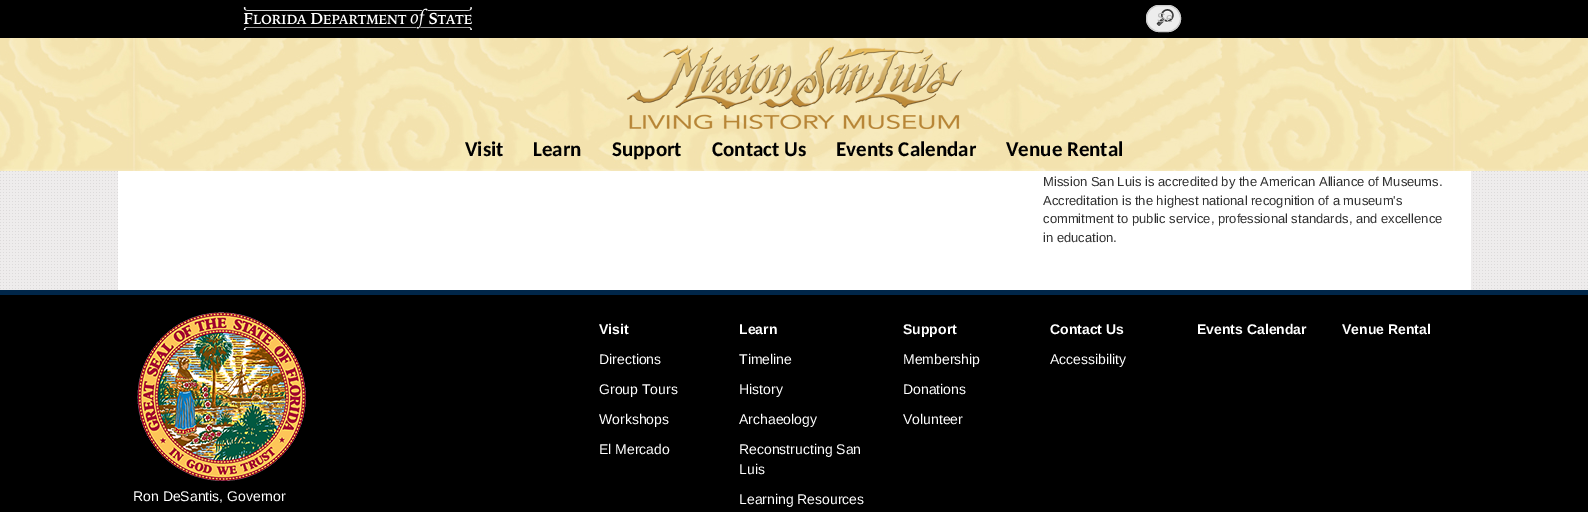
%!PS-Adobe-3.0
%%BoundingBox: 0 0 1588 512
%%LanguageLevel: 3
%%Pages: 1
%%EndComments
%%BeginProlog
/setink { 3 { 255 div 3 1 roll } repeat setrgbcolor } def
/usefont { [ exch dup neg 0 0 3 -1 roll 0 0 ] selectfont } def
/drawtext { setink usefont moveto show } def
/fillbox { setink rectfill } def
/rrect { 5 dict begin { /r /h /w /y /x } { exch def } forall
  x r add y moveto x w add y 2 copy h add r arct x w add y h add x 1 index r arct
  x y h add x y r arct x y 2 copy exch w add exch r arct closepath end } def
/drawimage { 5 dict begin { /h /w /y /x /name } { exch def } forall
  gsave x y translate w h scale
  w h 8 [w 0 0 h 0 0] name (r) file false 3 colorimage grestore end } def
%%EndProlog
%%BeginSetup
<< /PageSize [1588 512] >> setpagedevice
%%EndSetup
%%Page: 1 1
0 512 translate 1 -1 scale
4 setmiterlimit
0 0 1588 512 255 255 255 fillbox
(assets/img1.rgb) 0 171 1588 119 drawimage
0 0 1588 38 0 0 0 fillbox
243 7 229 23 255 255 255 fillbox
(assets/img2.rgb) 243 6 229 24 drawimage
237 237 237 setink
1146 5 35 27 13.5 rrect fill
(assets/img3.rgb) 1156 9 18 18 drawimage
204 204 204 setink
1146.5 5.5 34 26 13 rrect stroke
gsave
1157 10 15 15 rectclip
(Se) 1157 22 /LiberationSans-Regular 13 183 183 183 drawtext
grestore
(assets/img4.rgb) 0 38 1588 133 drawimage
(assets/img5.rgb) 627 45 335 84 drawimage
(Visit) 465 156 /Carlito-Bold 21 0 0 0 drawtext
(Learn) 533 156 /Carlito-Bold 21 0 0 0 drawtext
(Support) 612 156 /Carlito-Bold 21 0 0 0 drawtext
(Contact Us) 712 156 /Carlito-Bold 21 0 0 0 drawtext
(Events Calendar) 836 156 /Carlito-Bold 21 0 0 0 drawtext
(Venue Rental) 1006 156 /Carlito-Bold 21 0 0 0 drawtext
118 171 1353 119 255 255 255 fillbox
(Mission San Luis is accredited by the American Alliance of Museums.) 1043 186 /LiberationSans-Regular 13 49 49 49 drawtext
(Accreditation is the highest national recognition of a museum's) 1043 205 /LiberationSans-Regular 13 49 49 49 drawtext
(commitment to public service, professional standards, and excellence) 1043 223 /LiberationSans-Regular 13 49 49 49 drawtext
(in education.) 1043 242 /LiberationSans-Regular 13 49 49 49 drawtext
0 295 1588 217 0 0 0 fillbox
0 290 1588 5 0 38 73 fillbox
(assets/img6.rgb) 137 312 169 169 drawimage
(Ron DeSantis, Governor) 133 501 /LiberationSans-Regular 14 255 255 255 drawtext
(Visit) 599 334 /LiberationSans-Bold 14 255 255 255 drawtext
(Directions) 599 364 /LiberationSans-Regular 14 255 255 255 drawtext
(Group Tours) 599 394 /LiberationSans-Regular 14 255 255 255 drawtext
(Workshops) 599 424 /LiberationSans-Regular 14 255 255 255 drawtext
(El Mercado) 599 454 /LiberationSans-Regular 14 255 255 255 drawtext
(Learn) 739 334 /LiberationSans-Bold 14 255 255 255 drawtext
(Timeline) 739 364 /LiberationSans-Regular 14 255 255 255 drawtext
(History) 739 394 /LiberationSans-Regular 14 255 255 255 drawtext
(Archaeology) 739 424 /LiberationSans-Regular 14 255 255 255 drawtext
(Reconstructing San) 739 454 /LiberationSans-Regular 14 255 255 255 drawtext
(Luis) 739 474 /LiberationSans-Regular 14 255 255 255 drawtext
(Learning Resources) 739 504 /LiberationSans-Regular 14 255 255 255 drawtext
(Support) 903 334 /LiberationSans-Bold 14 255 255 255 drawtext
(Membership) 903 364 /LiberationSans-Regular 14 255 255 255 drawtext
(Donations) 903 394 /LiberationSans-Regular 14 255 255 255 drawtext
(Volunteer) 903 424 /LiberationSans-Regular 14 255 255 255 drawtext
(Contact Us) 1050 334 /LiberationSans-Bold 14 255 255 255 drawtext
(Accessibility) 1050 364 /LiberationSans-Regular 14 255 255 255 drawtext
(Events Calendar) 1197 334 /LiberationSans-Bold 14 255 255 255 drawtext
(Venue Rental) 1342 334 /LiberationSans-Bold 14 255 255 255 drawtext
showpage
%%EOF
